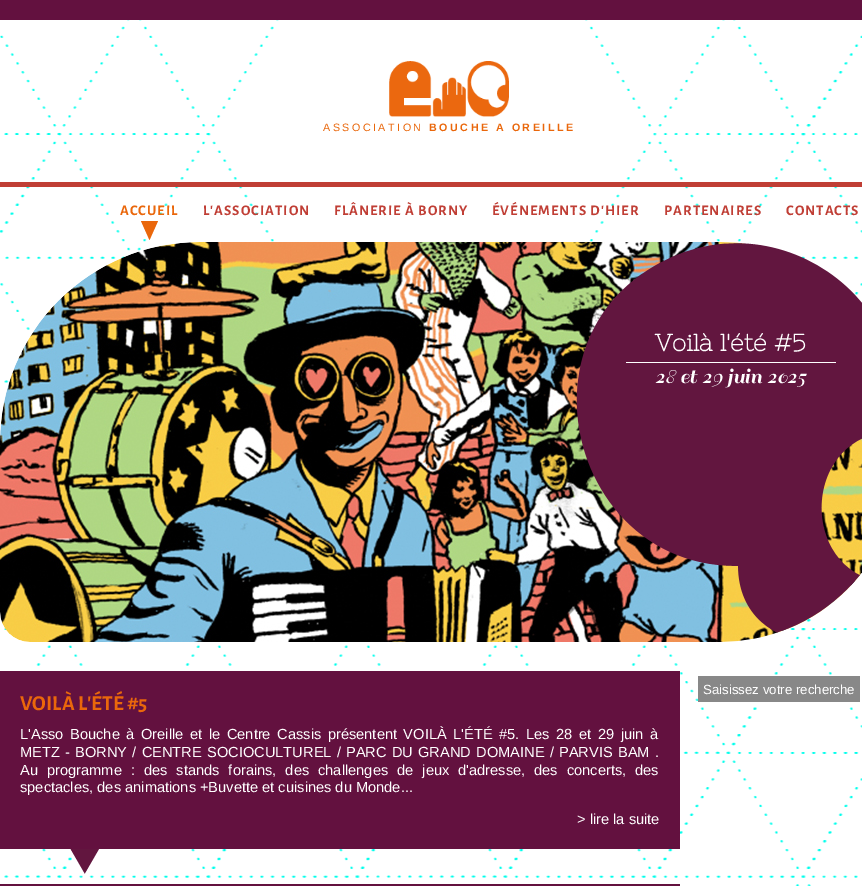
%!PS-Adobe-3.0
%%BoundingBox: 0 0 862 886
%%LanguageLevel: 3
%%Pages: 1
%%EndComments
%%BeginProlog
/setink { 3 { 255 div 3 1 roll } repeat setrgbcolor } def
/usefont { [ exch dup neg 0 0 3 -1 roll 0 0 ] selectfont } def
/drawtext { setink usefont moveto show } def
/fillbox { setink rectfill } def
/drawimage { 5 dict begin { /h /w /y /x /name } { exch def } forall
  gsave x y translate w h scale
  w h 8 [w 0 0 h 0 0] name (r) file false 3 colorimage grestore end } def
%%EndProlog
%%BeginSetup
<< /PageSize [862 886] >> setpagedevice
%%EndSetup
%%Page: 1 1
0 886 translate 1 -1 scale
4 setmiterlimit
0 0 862 886 255 255 255 fillbox
(assets/img1.rgb) 0 20 862 866 drawimage
0 0 862 20 99 17 63 fillbox
(assets/img2.rgb) 389 61 120 56 drawimage
/LiberationSans-Regular 10.7 usefont
234 103 11 setink
323 131 moveto 2.5 0 (ASSOCIATION) ashow
/LiberationSans-Bold 10.7 usefont
429 131 moveto 2.5 0 (BOUCHE A OREILLE) ashow
0 182 862 5 192 62 53 fillbox
(assets/img3.rgb) 141 221 17 19 drawimage
/AlegreyaSans-Bold 14.65 usefont
234 103 11 setink
120 215 moveto 1 0 (ACCUEIL) ashow
192 62 53 setink
203 215 moveto 1 0 (L'ASSOCIATION) ashow
334 215 moveto 1 0 (FLÂNERIE À BORNY) ashow
492 215 moveto 1 0 (ÉVÉNEMENTS D'HIER) ashow
664 215 moveto 1 0 (PARTENAIRES) ashow
786 215 moveto 1 0 (CONTACTS) ashow
(assets/img4.rgb) 0 242 862 400 drawimage
(assets/img5.rgb) 576 243 286 390 drawimage
(Voilà l'été #5) 655 351 /NixieOne-Bold 23.75 255 255 255 drawtext
626 362 210 1 255 255 255 fillbox
(28 et 29 juin 2025) 655 383 /Sail-Regular 23.75 255 255 255 drawtext
698 676 162 26 136 136 136 fillbox
(Saisissez votre recherche) 703 694 /LiberationSans-Regular 13.25 255 255 255 drawtext
(assets/img6.rgb) 70 849 29 25 drawimage
0 671 680 178 99 17 63 fillbox
(VOILÀ L'ÉTÉ #5) 20 710 /AlegreyaSans-Bold 21.25 234 103 11 drawtext
/LiberationSans-Regular 14.65 usefont
255 255 255 setink
20 739 moveto 2.5 0 32 (L'Asso Bouche à Oreille et le Centre Cassis présentent VOILÀ L'ÉTÉ #5. Les 28 et 29 juin à) widthshow
20 757 moveto 1.1 0 32 (METZ - BORNY / CENTRE SOCIOCULTUREL / PARC DU GRAND DOMAINE / PARVIS BAM .) widthshow
20 775 moveto 4.9 0 32 (Au programme : des stands forains, des challenges de jeux d'adresse, des concerts, des) widthshow
(spectacles, des animations +Buvette et cuisines du Monde...) 20 792 /LiberationSans-Regular 14.65 255 255 255 drawtext
(> lire la suite) 577 824 /LiberationSans-Regular 14.65 255 255 255 drawtext
0 884 680 2 99 17 63 fillbox
showpage
%%EOF
